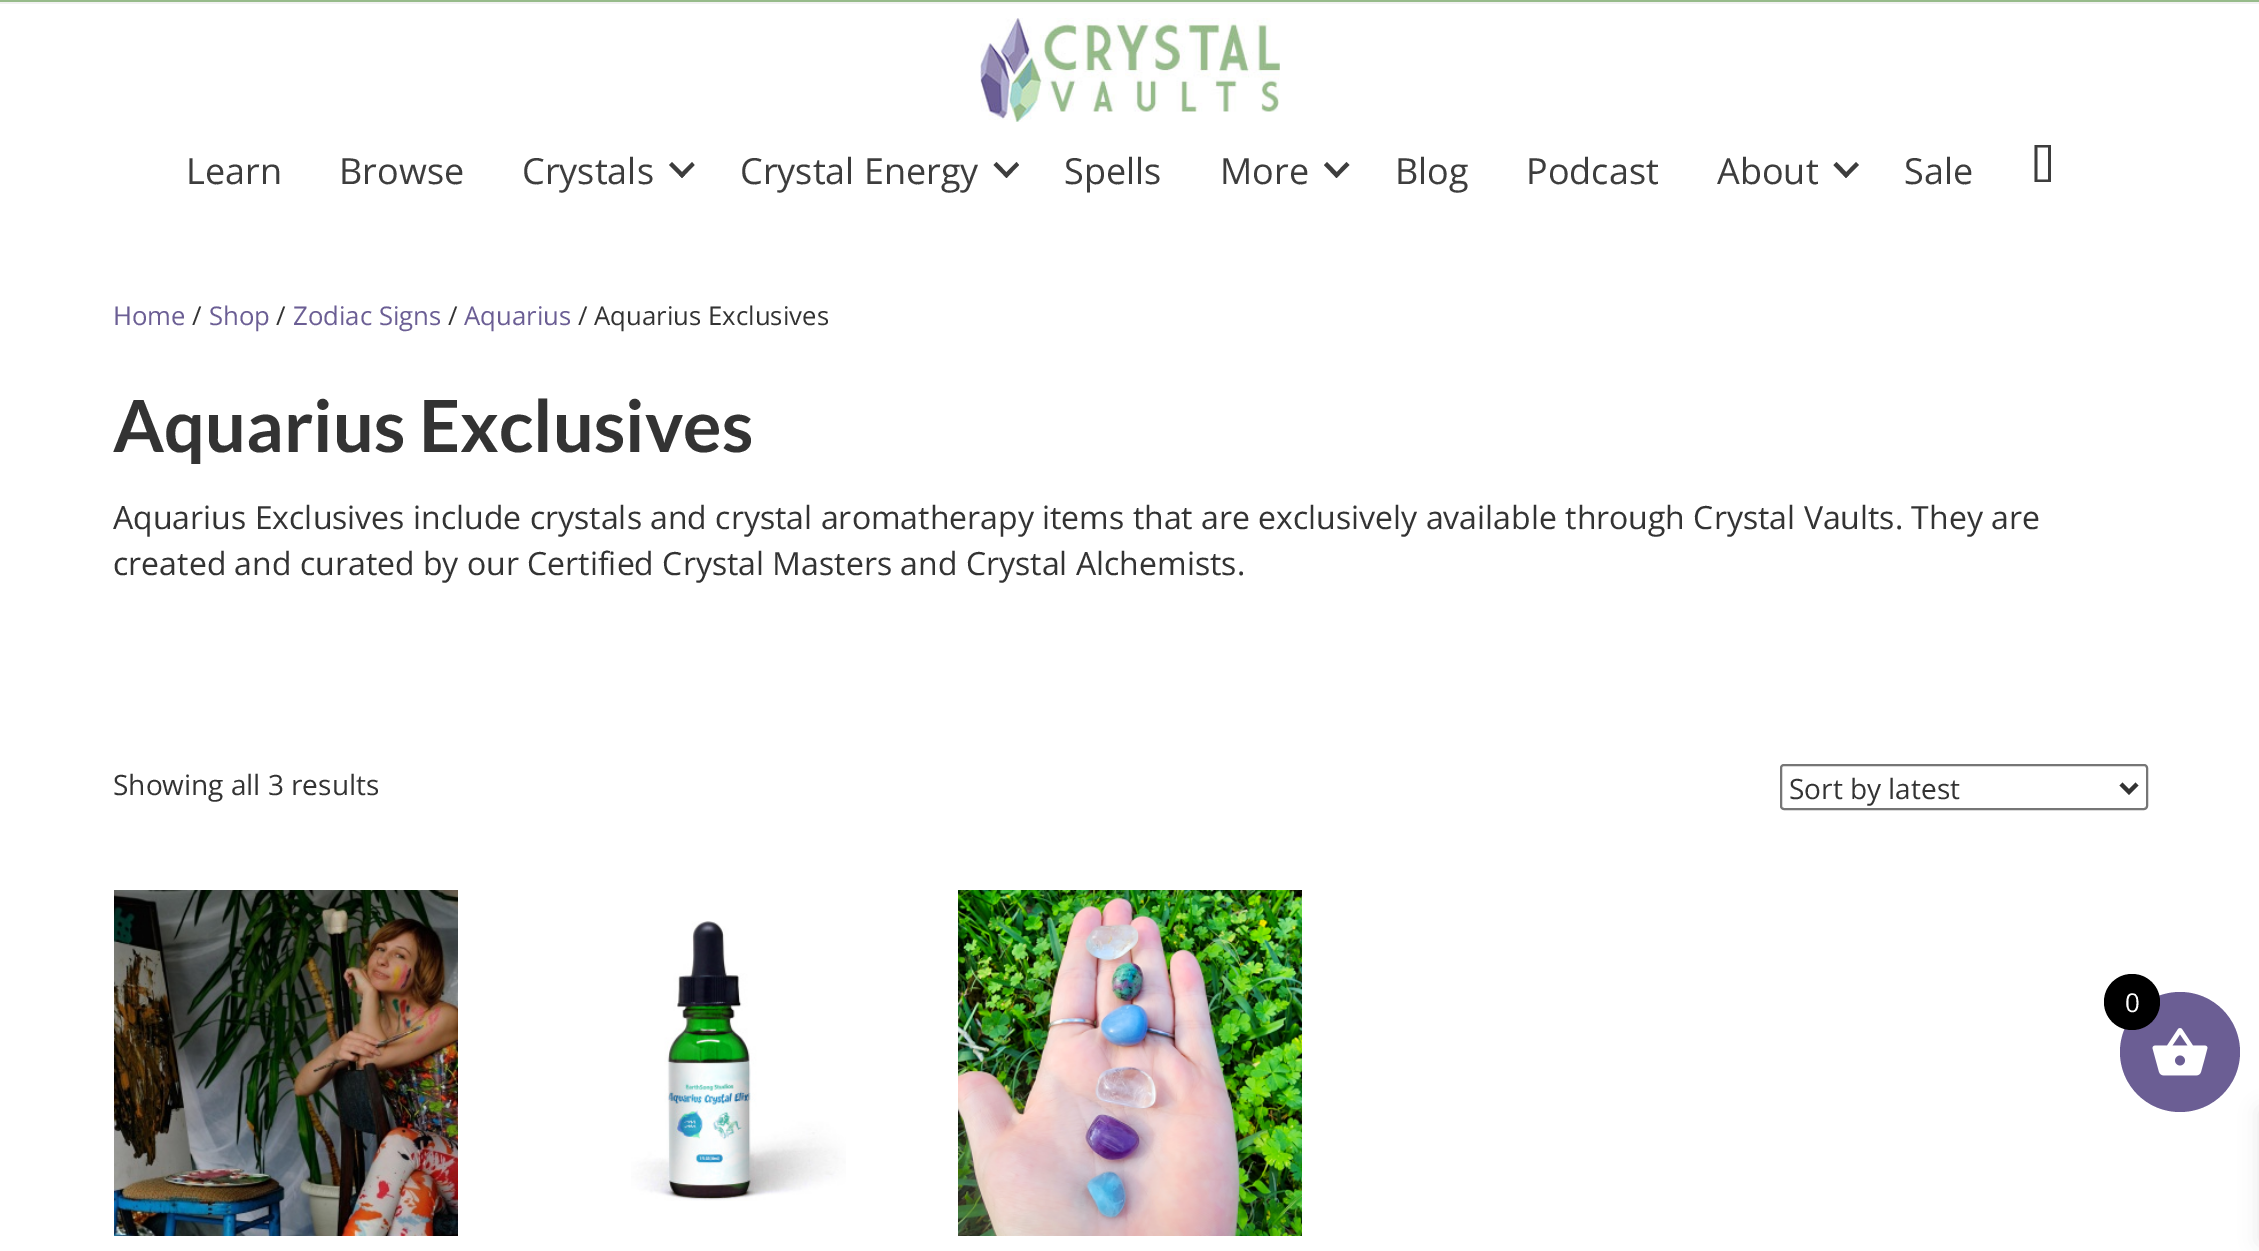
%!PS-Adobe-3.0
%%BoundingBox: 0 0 2259 1251
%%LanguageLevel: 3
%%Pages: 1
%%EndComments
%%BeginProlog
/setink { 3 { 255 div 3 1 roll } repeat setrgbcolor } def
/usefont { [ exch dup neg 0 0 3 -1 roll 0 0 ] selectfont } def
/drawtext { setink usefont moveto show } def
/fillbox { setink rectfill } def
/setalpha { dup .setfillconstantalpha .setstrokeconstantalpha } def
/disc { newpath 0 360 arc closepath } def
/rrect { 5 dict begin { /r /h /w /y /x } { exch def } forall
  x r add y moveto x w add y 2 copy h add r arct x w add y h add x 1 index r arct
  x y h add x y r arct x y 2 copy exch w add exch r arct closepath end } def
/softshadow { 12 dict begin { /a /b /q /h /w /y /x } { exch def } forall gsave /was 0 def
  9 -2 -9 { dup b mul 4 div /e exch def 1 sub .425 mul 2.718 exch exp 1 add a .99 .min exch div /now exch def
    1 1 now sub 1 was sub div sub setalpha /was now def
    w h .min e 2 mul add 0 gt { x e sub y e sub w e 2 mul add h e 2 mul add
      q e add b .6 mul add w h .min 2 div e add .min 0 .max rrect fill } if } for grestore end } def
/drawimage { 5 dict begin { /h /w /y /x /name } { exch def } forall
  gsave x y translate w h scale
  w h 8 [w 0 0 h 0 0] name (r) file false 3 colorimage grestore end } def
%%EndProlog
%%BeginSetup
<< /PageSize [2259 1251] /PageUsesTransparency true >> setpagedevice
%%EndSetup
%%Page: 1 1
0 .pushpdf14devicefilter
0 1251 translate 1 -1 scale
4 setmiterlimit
0 0 2259 1251 255 255 255 fillbox
0 0 2259 2 151 187 139 fillbox
0 2 2259 2 242 242 242 fillbox
(assets/img1.rgb) 980 18 300 104 drawimage
(Learn) 186 184 /OpenSans-Regular 36 61 61 61 drawtext
(Browse) 339 184 /OpenSans-Regular 36 61 61 61 drawtext
(Crystals) 522 184 /OpenSans-Regular 36 61 61 61 drawtext
692 162 moveto 694.5 165 lineto 682 178 lineto 679 175 lineto closepath fill
672 162 moveto 685 175 lineto 682 178 lineto 669 165 lineto closepath fill
(Crystal Energy) 740 184 /OpenSans-Regular 36 61 61 61 drawtext
1016.5 162 moveto 1019 165 lineto 1006.5 178 lineto 1003.5 175 lineto closepath fill
996.5 162 moveto 1009 175 lineto 1006.5 178 lineto 993.5 165 lineto closepath fill
(Spells) 1064 184 /OpenSans-Regular 36 61 61 61 drawtext
(More) 1220 184 /OpenSans-Regular 36 61 61 61 drawtext
1346.5 162 moveto 1349.5 165 lineto 1336.5 178 lineto 1334 175 lineto closepath fill
1327 162 moveto 1339.5 175 lineto 1336.5 178 lineto 1324 165 lineto closepath fill
(Blog) 1395 184 /OpenSans-Regular 36 61 61 61 drawtext
(Podcast) 1526 184 /OpenSans-Regular 36 61 61 61 drawtext
(About) 1717 184 /OpenSans-Regular 36 61 61 61 drawtext
1856 162 moveto 1859 165 lineto 1846 178 lineto 1843.5 175 lineto closepath fill
1836.5 162 moveto 1849 175 lineto 1846 178 lineto 1833.5 165 lineto closepath fill
(Sale) 1904 184 /OpenSans-Regular 36 61 61 61 drawtext
2037.5 179.5 moveto 2048 179.5 lineto 2048 147.5 lineto 2037.5 147.5 lineto closepath 2034.5 182 moveto 2034.5 145 lineto 2051 145 lineto 2051 182 lineto closepath fill
(Home) 113 325 /OpenSans-Regular 25.75 107 94 148 drawtext
(/) 192 325 /OpenSans-Regular 25.75 51 51 51 drawtext
(Shop) 209 325 /OpenSans-Regular 25.75 107 94 148 drawtext
(/) 276 325 /OpenSans-Regular 25.75 51 51 51 drawtext
(Zodiac Signs) 293 325 /OpenSans-Regular 25.75 107 94 148 drawtext
(/) 448 325 /OpenSans-Regular 25.75 51 51 51 drawtext
(Aquarius) 464 325 /OpenSans-Regular 25.75 107 94 148 drawtext
(/ Aquarius Exclusives) 578 325 /OpenSans-Regular 25.75 51 51 51 drawtext
(Aquarius Exclusives) 113 452 /Lato-Bold 72 51 51 51 drawtext
(Aquarius Exclusives include crystals and crystal aromatherapy items that are exclusively available through Crystal Vaults. They are) 113 529 /OpenSans-Regular 32 51 51 51 drawtext
(created and curated by our Certified Crystal Masters and Crystal Alchemists.) 113 575 /OpenSans-Regular 32 51 51 51 drawtext
(Showing all 3 results) 113 795 /OpenSans-Regular 28 51 51 51 drawtext
118 118 118 setink
2 setlinewidth
1781 765 366 44 3 rrect stroke
51 51 51 setink
4 setlinewidth
2121 784 moveto 2129 792 lineto 2137 784 lineto stroke
(Sort by latest) 1789 799 /OpenSans-Regular 28 51 51 51 drawtext
(assets/img2.rgb) 114 890 344 346 drawimage
(assets/img3.rgb) 631 921 215 280 drawimage
(assets/img4.rgb) 958 890 344 346 drawimage
0 0 0 setink
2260 1110 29 132 0 10 0.1 softshadow
107 94 148 setink
2180 1052 60 disc fill
(assets/img5.rgb) 2152 1028 56 48 drawimage
0 0 0 setink
2132 1002 28 disc fill
(0) 2125 1012 /OpenSans-Regular 26 255 255 255 drawtext
.poppdf14devicefilter showpage
%%EOF
